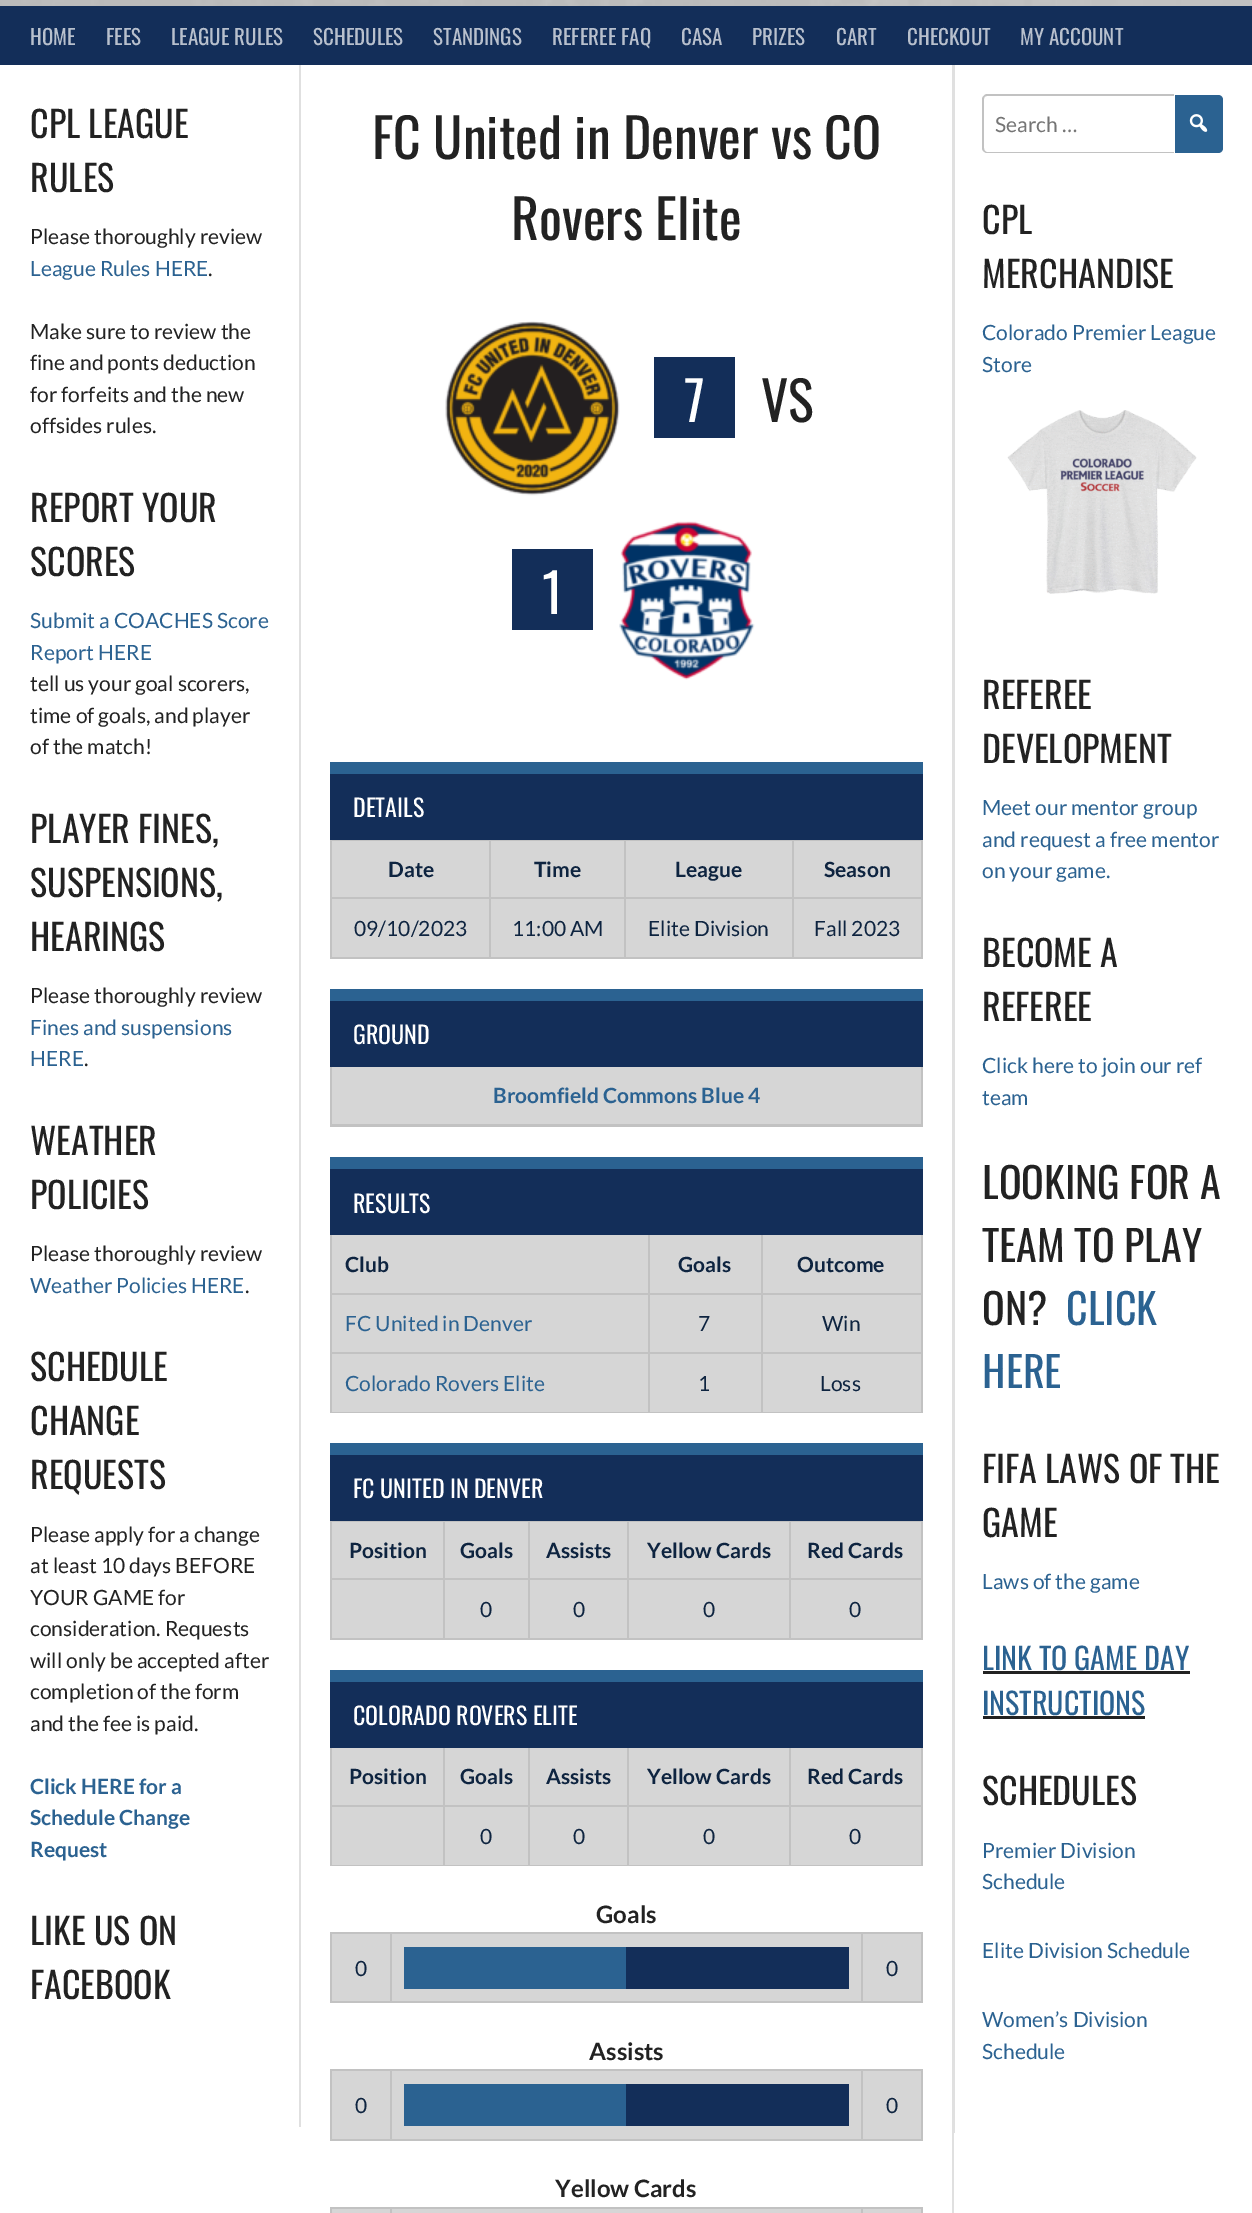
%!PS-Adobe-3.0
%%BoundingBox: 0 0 1252 2213
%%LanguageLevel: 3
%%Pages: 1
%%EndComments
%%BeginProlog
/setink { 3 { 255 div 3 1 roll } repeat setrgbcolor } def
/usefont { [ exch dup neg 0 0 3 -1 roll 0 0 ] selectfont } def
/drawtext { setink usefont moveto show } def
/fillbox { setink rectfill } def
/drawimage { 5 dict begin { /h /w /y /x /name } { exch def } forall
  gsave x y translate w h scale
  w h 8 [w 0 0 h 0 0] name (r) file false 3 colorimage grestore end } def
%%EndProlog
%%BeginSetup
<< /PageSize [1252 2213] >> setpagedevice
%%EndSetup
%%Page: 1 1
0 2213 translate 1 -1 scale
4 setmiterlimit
0 0 1252 2213 255 255 255 fillbox
(assets/img1.rgb) 0 0 1252 6 drawimage
0 6 1252 59 19 46 89 fillbox
(HOME) 30 45 /Oswald-Regular 21 184 192 205 drawtext
(FEES) 106 45 /Oswald-Regular 21 184 192 205 drawtext
(LEAGUE RULES) 171 45 /Oswald-Regular 21 184 192 205 drawtext
(SCHEDULES) 313 45 /Oswald-Regular 21 184 192 205 drawtext
(STANDINGS) 433 45 /Oswald-Regular 21 184 192 205 drawtext
(REFEREE FAQ) 552 45 /Oswald-Regular 21 184 192 205 drawtext
(CASA) 681 45 /Oswald-Regular 21 184 192 205 drawtext
(PRIZES) 752 45 /Oswald-Regular 21 184 192 205 drawtext
(CART) 836 45 /Oswald-Regular 21 184 192 205 drawtext
(CHECKOUT) 907 45 /Oswald-Regular 21 184 192 205 drawtext
(MY ACCOUNT) 1020 45 /Oswald-Regular 21 184 192 205 drawtext
299 65 2 2062 224 224 224 fillbox
(CPL LEAGUE) 30 138 /Oswald-Regular 36 34 34 34 drawtext
(RULES) 30 192 /Oswald-Regular 36 34 34 34 drawtext
(Please thoroughly review) 30 244 /Lato-Regular 21 34 34 34 drawtext
(League Rules HERE) 30 276 /Lato-Regular 21 43 98 145 drawtext
(.) 208 276 /Lato-Regular 21 34 34 34 drawtext
(Make sure to review the) 30 339 /Lato-Regular 21 34 34 34 drawtext
(fine and ponts deduction) 30 370 /Lato-Regular 21 34 34 34 drawtext
(for forfeits and the new) 30 402 /Lato-Regular 21 34 34 34 drawtext
(offsides rules.) 30 433 /Lato-Regular 21 34 34 34 drawtext
(REPORT YOUR) 30 522 /Oswald-Regular 36 34 34 34 drawtext
(SCORES) 30 576 /Oswald-Regular 36 34 34 34 drawtext
(Submit a COACHES Score) 30 628 /Lato-Regular 21 43 98 145 drawtext
(Report HERE) 30 660 /Lato-Regular 21 43 98 145 drawtext
(tell us your goal scorers,) 30 691 /Lato-Regular 21 34 34 34 drawtext
(time of goals, and player) 30 723 /Lato-Regular 21 34 34 34 drawtext
(of the match!) 30 754 /Lato-Regular 21 34 34 34 drawtext
(PLAYER FINES,) 30 843 /Oswald-Regular 36 34 34 34 drawtext
(SUSPENSIONS,) 30 897 /Oswald-Regular 36 34 34 34 drawtext
(HEARINGS) 30 951 /Oswald-Regular 36 34 34 34 drawtext
(Please thoroughly review) 30 1003 /Lato-Regular 21 34 34 34 drawtext
(Fines and suspensions) 30 1035 /Lato-Regular 21 43 98 145 drawtext
(HERE) 30 1066 /Lato-Regular 21 43 98 145 drawtext
(.) 84 1066 /Lato-Regular 21 34 34 34 drawtext
(WEATHER) 30 1155 /Oswald-Regular 36 34 34 34 drawtext
(POLICIES) 30 1209 /Oswald-Regular 36 34 34 34 drawtext
(Please thoroughly review) 30 1261 /Lato-Regular 21 34 34 34 drawtext
(Weather Policies HERE) 30 1293 /Lato-Regular 21 43 98 145 drawtext
(.) 245 1293 /Lato-Regular 21 34 34 34 drawtext
(SCHEDULE) 30 1381 /Oswald-Regular 36 34 34 34 drawtext
(CHANGE) 30 1435 /Oswald-Regular 36 34 34 34 drawtext
(REQUESTS) 30 1489 /Oswald-Regular 36 34 34 34 drawtext
(Please apply for a change) 30 1542 /Lato-Regular 21 34 34 34 drawtext
(at least 10 days BEFORE) 30 1573 /Lato-Regular 21 34 34 34 drawtext
(YOUR GAME for) 30 1605 /Lato-Regular 21 34 34 34 drawtext
(consideration. Requests) 30 1636 /Lato-Regular 21 34 34 34 drawtext
(will only be accepted after) 30 1668 /Lato-Regular 21 34 34 34 drawtext
(completion of the form) 30 1699 /Lato-Regular 21 34 34 34 drawtext
(and the fee is paid.) 30 1731 /Lato-Regular 21 34 34 34 drawtext
(Click HERE for a) 30 1794 /Lato-Bold 21 43 98 145 drawtext
(Schedule Change) 30 1825 /Lato-Bold 21 43 98 145 drawtext
(Request) 30 1857 /Lato-Bold 21 43 98 145 drawtext
(LIKE US ON) 30 1945 /Oswald-Regular 36 34 34 34 drawtext
(FACEBOOK) 30 1999 /Oswald-Regular 36 34 34 34 drawtext
952 65 2 2148 224 224 224 fillbox
(FC United in Denver vs CO) 372 159 /Oswald-Regular 54 34 34 34 drawtext
(Rovers Elite) 511 240 /Oswald-Regular 54 34 34 34 drawtext
(assets/img2.rgb) 445 321 175 175 drawimage
654 357 81 81 19 46 89 fillbox
(7) 684 422 /Oswald-Regular 54 255 255 255 drawtext
(VS) 761 422 /Oswald-Regular 54 34 34 34 drawtext
512 549 81 81 19 46 89 fillbox
(1) 542 614 /Oswald-Regular 54 255 255 255 drawtext
(assets/img3.rgb) 619 521 136 159 drawimage
330 840 593 1 194 194 194 fillbox
921 839 2 120 194 194 194 fillbox
330 957 593 2 194 194 194 fillbox
330 839 2 120 194 194 194 fillbox
332 841 589 116 214 214 214 fillbox
792 897 131 2 194 194 194 fillbox
792 897 2 62 194 194 194 fillbox
624 897 170 2 194 194 194 fillbox
624 897 2 62 194 194 194 fillbox
489 897 137 2 194 194 194 fillbox
489 897 2 62 194 194 194 fillbox
330 897 161 2 194 194 194 fillbox
489 839 2 60 194 194 194 fillbox
624 839 2 60 194 194 194 fillbox
792 839 2 60 194 194 194 fillbox
330 774 593 66 19 46 89 fillbox
330 762 593 12 43 98 145 fillbox
(DETAILS) 353 817 /Oswald-Regular 24 255 255 255 drawtext
(Date) 388 877 /Lato-Bold 21 14 36 64 drawtext
(Time) 534 877 /Lato-Bold 21 14 36 64 drawtext
(League) 675 877 /Lato-Bold 21 14 36 64 drawtext
(Season) 824 877 /Lato-Bold 21 14 36 64 drawtext
(09/10/2023) 354 936 /Lato-Regular 21 14 36 64 drawtext
(11:00 AM) 512 936 /Lato-Regular 21 14 36 64 drawtext
(Elite Division) 648 936 /Lato-Regular 21 14 36 64 drawtext
(Fall 2023) 814 936 /Lato-Regular 21 14 36 64 drawtext
921 1065 2 62 194 194 194 fillbox
330 1126 593 1 194 194 194 fillbox
330 1065 2 62 194 194 194 fillbox
330 1001 593 66 19 46 89 fillbox
330 989 593 12 43 98 145 fillbox
(GROUND) 353 1044 /Oswald-Regular 24 255 255 255 drawtext
332 1067 589 57 214 214 214 fillbox
(Broomfield Commons Blue 4) 493 1103 /Lato-Bold 21 43 98 145 drawtext
330 1124 593 2 194 194 194 fillbox
921 1233 2 180 194 194 194 fillbox
330 1412 593 1 194 194 194 fillbox
330 1233 2 180 194 194 194 fillbox
332 1235 589 177 214 214 214 fillbox
761 1293 162 2 194 194 194 fillbox
761 1352 162 2 194 194 194 fillbox
761 1352 2 61 194 194 194 fillbox
648 1352 114 2 194 194 194 fillbox
761 1293 2 60 194 194 194 fillbox
648 1293 114 2 194 194 194 fillbox
648 1352 2 61 194 194 194 fillbox
330 1352 320 2 194 194 194 fillbox
648 1293 2 60 194 194 194 fillbox
330 1293 320 2 194 194 194 fillbox
648 1233 2 62 194 194 194 fillbox
761 1233 2 62 194 194 194 fillbox
330 1169 593 66 19 46 89 fillbox
330 1157 593 12 43 98 145 fillbox
(RESULTS) 353 1213 /Oswald-Regular 24 255 255 255 drawtext
(Club) 345 1272 /Lato-Bold 21 14 36 64 drawtext
(Goals) 678 1272 /Lato-Bold 21 14 36 64 drawtext
(Outcome) 797 1272 /Lato-Bold 21 14 36 64 drawtext
(FC United in Denver) 345 1331 /Lato-Regular 21 43 98 145 drawtext
(7) 698 1331 /Lato-Regular 21 14 36 64 drawtext
(Win) 822 1331 /Lato-Regular 21 14 36 64 drawtext
(Colorado Rovers Elite) 345 1391 /Lato-Regular 21 43 98 145 drawtext
(1) 698 1391 /Lato-Regular 21 14 36 64 drawtext
(Loss) 820 1391 /Lato-Regular 21 14 36 64 drawtext
330 1521 593 1 194 194 194 fillbox
921 1520 2 120 194 194 194 fillbox
330 1638 593 2 194 194 194 fillbox
330 1520 2 120 194 194 194 fillbox
332 1522 589 116 214 214 214 fillbox
789 1578 134 2 194 194 194 fillbox
789 1578 2 62 194 194 194 fillbox
627 1578 164 2 194 194 194 fillbox
627 1578 2 62 194 194 194 fillbox
528 1578 101 2 194 194 194 fillbox
528 1578 2 62 194 194 194 fillbox
443 1578 87 2 194 194 194 fillbox
443 1578 2 62 194 194 194 fillbox
330 1578 114 2 194 194 194 fillbox
443 1520 2 60 194 194 194 fillbox
528 1520 2 60 194 194 194 fillbox
627 1520 2 60 194 194 194 fillbox
789 1520 2 60 194 194 194 fillbox
330 1455 593 66 19 46 89 fillbox
330 1443 593 12 43 98 145 fillbox
(FC UNITED IN DENVER) 353 1498 /Oswald-Regular 24 255 255 255 drawtext
(Position) 349 1558 /Lato-Bold 21 14 36 64 drawtext
(Goals) 460 1558 /Lato-Bold 21 14 36 64 drawtext
(Assists) 546 1558 /Lato-Bold 21 14 36 64 drawtext
(Yellow Cards) 647 1558 /Lato-Bold 21 14 36 64 drawtext
(Red Cards) 807 1558 /Lato-Bold 21 14 36 64 drawtext
(0) 480 1617 /Lato-Regular 21 14 36 64 drawtext
(0) 573 1617 /Lato-Regular 21 14 36 64 drawtext
(0) 703 1617 /Lato-Regular 21 14 36 64 drawtext
(0) 849 1617 /Lato-Regular 21 14 36 64 drawtext
921 1746 2 120 194 194 194 fillbox
330 1865 593 1 194 194 194 fillbox
330 1746 2 120 194 194 194 fillbox
332 1748 589 117 214 214 214 fillbox
789 1805 134 2 194 194 194 fillbox
789 1805 2 61 194 194 194 fillbox
627 1805 164 2 194 194 194 fillbox
627 1805 2 61 194 194 194 fillbox
528 1805 101 2 194 194 194 fillbox
528 1805 2 61 194 194 194 fillbox
443 1805 87 2 194 194 194 fillbox
443 1805 2 61 194 194 194 fillbox
330 1805 114 2 194 194 194 fillbox
443 1746 2 60 194 194 194 fillbox
528 1746 2 60 194 194 194 fillbox
627 1746 2 60 194 194 194 fillbox
789 1746 2 60 194 194 194 fillbox
330 1682 593 66 19 46 89 fillbox
330 1670 593 12 43 98 145 fillbox
(COLORADO ROVERS ELITE) 353 1725 /Oswald-Regular 24 255 255 255 drawtext
(Position) 349 1784 /Lato-Bold 21 14 36 64 drawtext
(Goals) 460 1784 /Lato-Bold 21 14 36 64 drawtext
(Assists) 546 1784 /Lato-Bold 21 14 36 64 drawtext
(Yellow Cards) 647 1784 /Lato-Bold 21 14 36 64 drawtext
(Red Cards) 807 1784 /Lato-Bold 21 14 36 64 drawtext
(0) 480 1844 /Lato-Regular 21 14 36 64 drawtext
(0) 573 1844 /Lato-Regular 21 14 36 64 drawtext
(0) 703 1844 /Lato-Regular 21 14 36 64 drawtext
(0) 849 1844 /Lato-Regular 21 14 36 64 drawtext
(Goals) 596 1923 /Lato-Bold 24 34 34 34 drawtext
332 1934 589 67 214 214 214 fillbox
330 1932 593 2 194 194 194 fillbox
921 1932 2 71 194 194 194 fillbox
330 2001 593 2 194 194 194 fillbox
330 1932 2 71 194 194 194 fillbox
(0) 355 1976 /Lato-Regular 21 14 36 64 drawtext
390 1932 2 71 194 194 194 fillbox
626 1947 223 42 19 46 89 fillbox
404 1947 222 42 43 98 145 fillbox
861 1932 2 71 194 194 194 fillbox
(0) 886 1976 /Lato-Regular 21 14 36 64 drawtext
(Assists) 589 2060 /Lato-Bold 24 34 34 34 drawtext
332 2071 589 68 214 214 214 fillbox
330 2069 593 2 194 194 194 fillbox
921 2069 2 72 194 194 194 fillbox
330 2139 593 2 194 194 194 fillbox
330 2069 2 72 194 194 194 fillbox
(0) 355 2113 /Lato-Regular 21 14 36 64 drawtext
390 2069 2 72 194 194 194 fillbox
626 2084 223 42 19 46 89 fillbox
404 2084 222 42 43 98 145 fillbox
861 2069 2 72 194 194 194 fillbox
(0) 886 2113 /Lato-Regular 21 14 36 64 drawtext
(Yellow Cards) 555 2197 /Lato-Bold 24 34 34 34 drawtext
330 2209 593 4 214 214 214 fillbox
330 2207 593 2 194 194 194 fillbox
921 2207 2 6 194 194 194 fillbox
330 2207 2 6 194 194 194 fillbox
390 2207 2 6 194 194 194 fillbox
861 2207 2 6 194 194 194 fillbox
954 65 1 2068 224 224 224 fillbox
194 194 194 setink
987 94 moveto 1174 94 lineto 1174 153 lineto 987 153 lineto 985 153 982 151 982 148 curveto 982 99 lineto 982 97 985 94 987 94 curveto closepath 987 96 moveto 1174 96 lineto 1174 152 lineto 987 152 lineto 985 152 984 150 984 148 curveto 984 99 lineto 984 97 985 96 987 96 curveto closepath eofill
(Search …) 995 132 /Lato-Regular 21 117 117 117 drawtext
43 98 145 setink
1175 95 moveto 1218 95 lineto 1221 95 1223 97 1223 100 curveto 1223 148 lineto 1223 151 1221 153 1218 153 curveto 1175 153 lineto closepath fill
(assets/img4.rgb) 1189 114 19 18 drawimage
(CPL) 982 234 /Oswald-Regular 36 34 34 34 drawtext
(MERCHANDISE) 982 288 /Oswald-Regular 36 34 34 34 drawtext
(Colorado Premier League) 982 340 /Lato-Regular 21 43 98 145 drawtext
(Store) 982 372 /Lato-Regular 21 43 98 145 drawtext
(assets/img5.rgb) 1007 410 190 184 drawimage
(REFEREE) 982 709 /Oswald-Regular 36 34 34 34 drawtext
(DEVELOPMENT) 982 763 /Oswald-Regular 36 34 34 34 drawtext
(Meet our mentor group) 982 815 /Lato-Regular 21 43 98 145 drawtext
(and request a free mentor) 982 847 /Lato-Regular 21 43 98 145 drawtext
(on your game.) 982 878 /Lato-Regular 21 43 98 145 drawtext
(BECOME A) 982 967 /Oswald-Regular 36 34 34 34 drawtext
(REFEREE) 982 1021 /Oswald-Regular 36 34 34 34 drawtext
(Click here to join our ref) 982 1073 /Lato-Regular 21 43 98 145 drawtext
(team) 982 1105 /Lato-Regular 21 43 98 145 drawtext
(LOOKING FOR A) 982 1199 /Oswald-Regular 42 34 34 34 drawtext
(TEAM TO PLAY) 982 1262 /Oswald-Regular 42 34 34 34 drawtext
(ON?) 982 1325 /Oswald-Regular 42 34 34 34 drawtext
(CLICK) 1066 1325 /Oswald-Regular 42 43 98 145 drawtext
(HERE) 982 1388 /Oswald-Regular 42 43 98 145 drawtext
(FIFA LAWS OF THE) 982 1483 /Oswald-Regular 36 34 34 34 drawtext
(GAME) 982 1537 /Oswald-Regular 36 34 34 34 drawtext
(Laws of the game) 982 1589 /Lato-Regular 21 43 98 145 drawtext
(LINK TO GAME DAY) 982 1670 /Oswald-Regular 30 43 98 145 drawtext
983 1671 207 3 34 34 34 fillbox
(INSTRUCTIONS) 982 1715 /Oswald-Regular 30 43 98 145 drawtext
983 1716 162 3 34 34 34 fillbox
(SCHEDULES) 982 1805 /Oswald-Regular 36 34 34 34 drawtext
(Premier Division) 982 1858 /Lato-Regular 21 43 98 145 drawtext
(Schedule) 982 1889 /Lato-Regular 21 43 98 145 drawtext
(Elite Division Schedule) 982 1958 /Lato-Regular 21 43 98 145 drawtext
(Women’s Division) 982 2027 /Lato-Regular 21 43 98 145 drawtext
(Schedule) 982 2059 /Lato-Regular 21 43 98 145 drawtext
showpage
%%EOF
